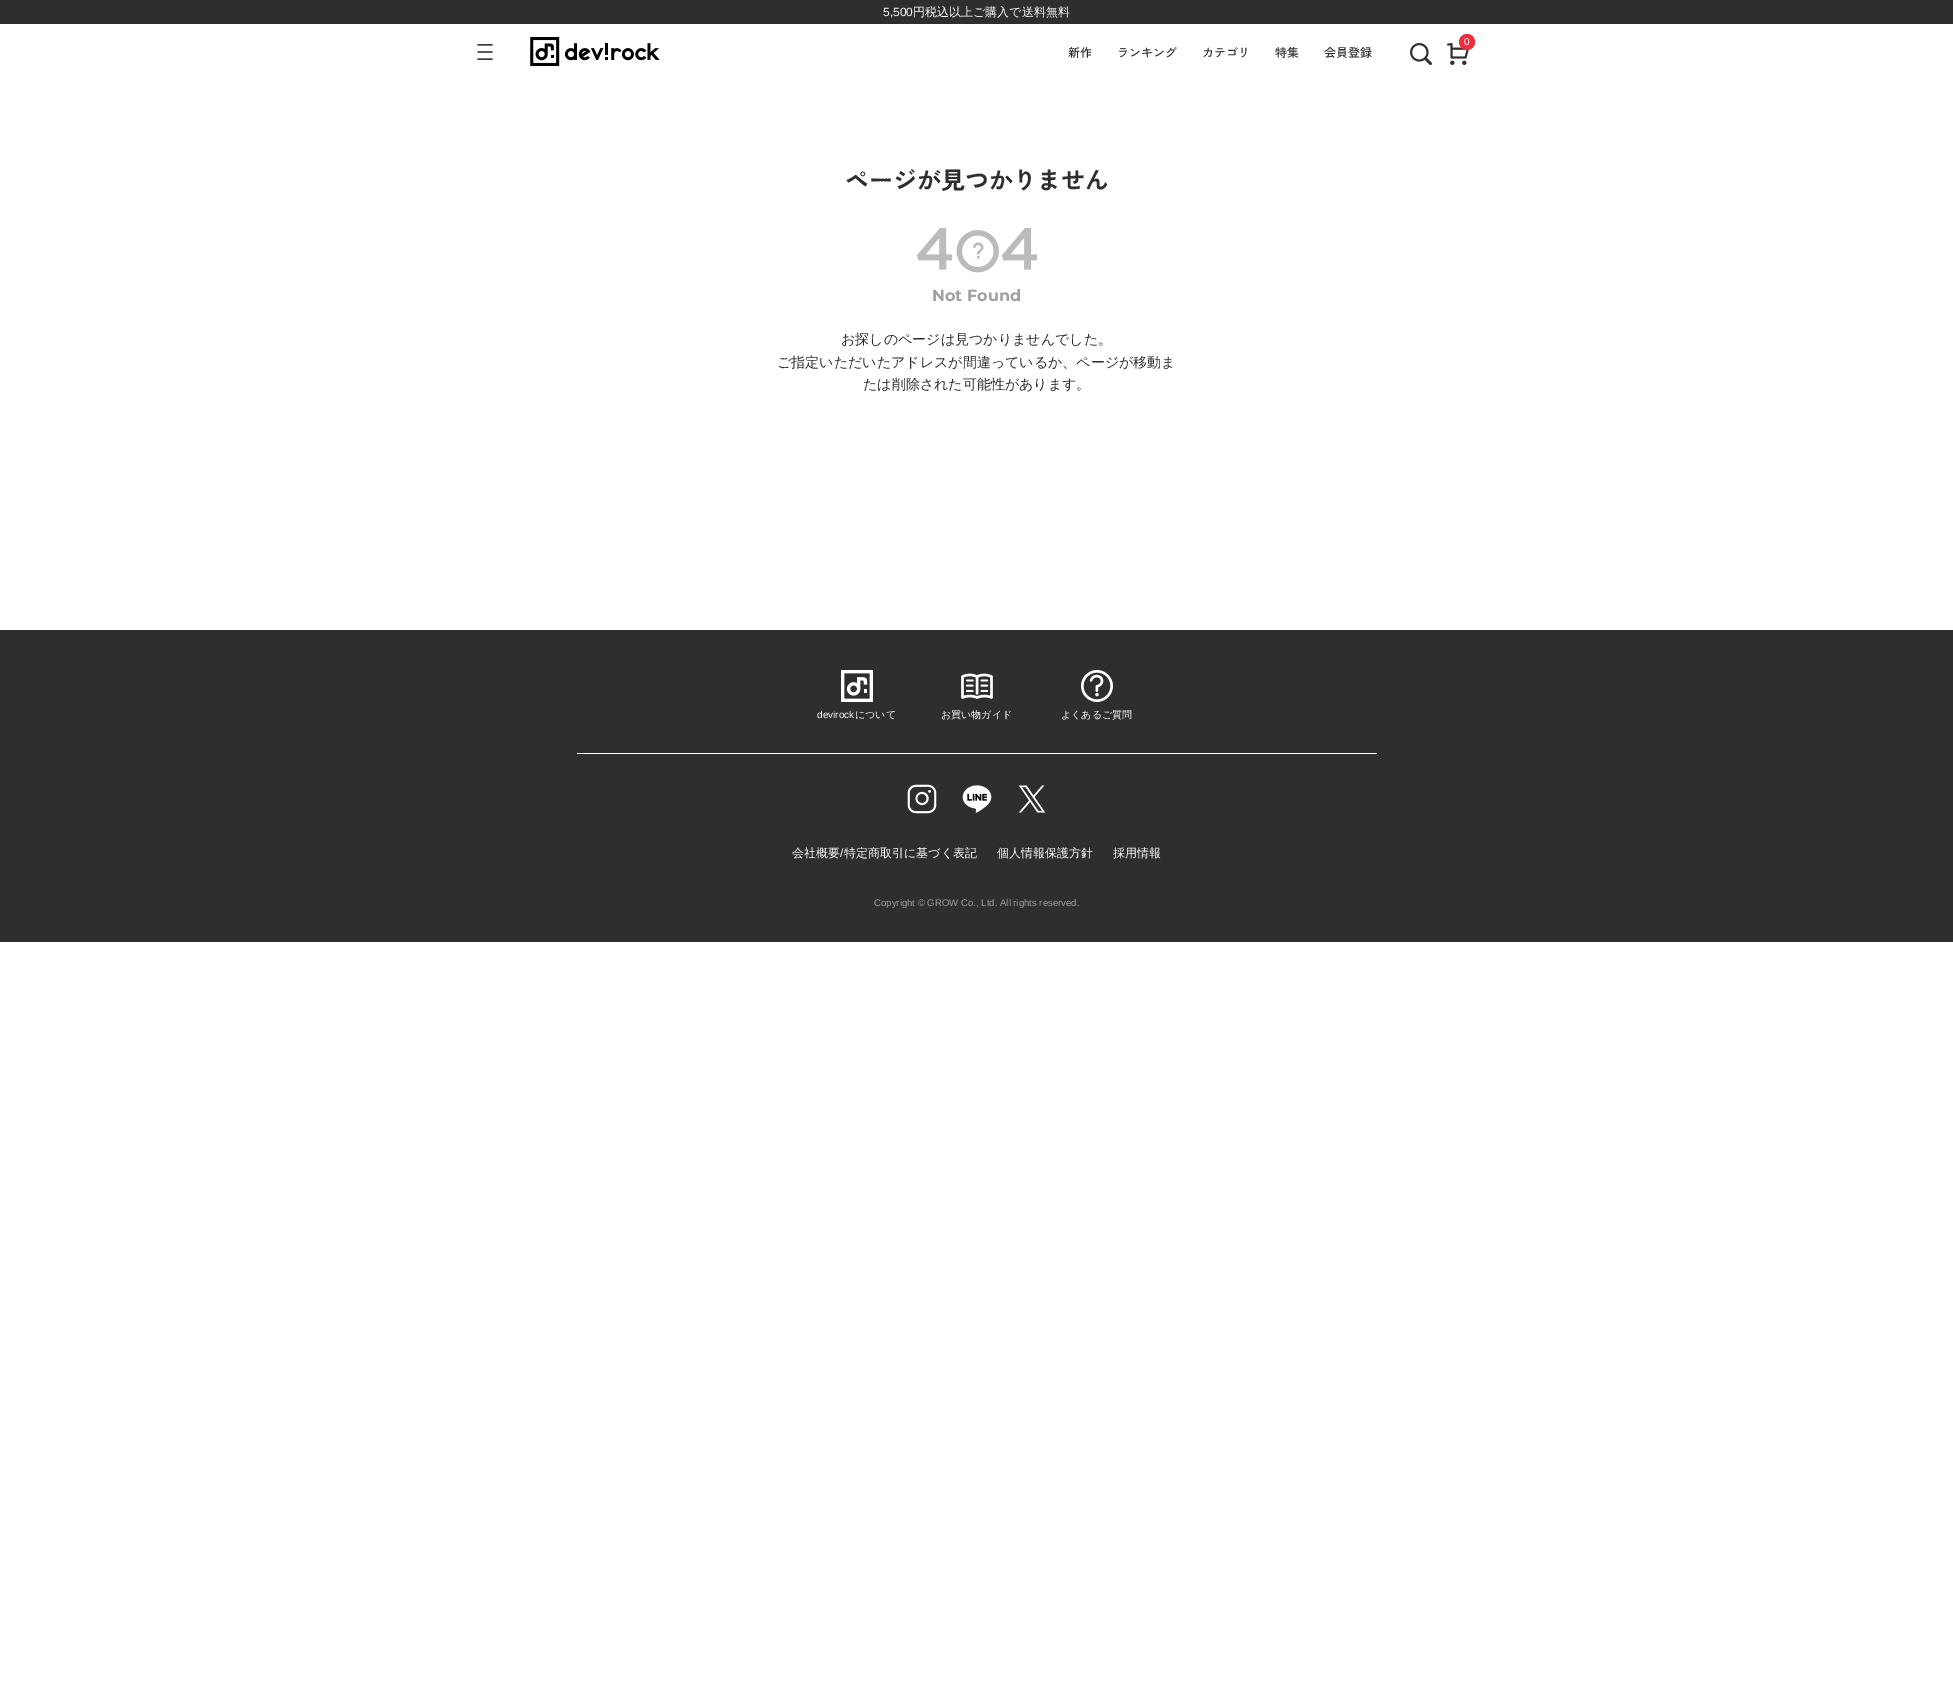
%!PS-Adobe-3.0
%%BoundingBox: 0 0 1953 1693
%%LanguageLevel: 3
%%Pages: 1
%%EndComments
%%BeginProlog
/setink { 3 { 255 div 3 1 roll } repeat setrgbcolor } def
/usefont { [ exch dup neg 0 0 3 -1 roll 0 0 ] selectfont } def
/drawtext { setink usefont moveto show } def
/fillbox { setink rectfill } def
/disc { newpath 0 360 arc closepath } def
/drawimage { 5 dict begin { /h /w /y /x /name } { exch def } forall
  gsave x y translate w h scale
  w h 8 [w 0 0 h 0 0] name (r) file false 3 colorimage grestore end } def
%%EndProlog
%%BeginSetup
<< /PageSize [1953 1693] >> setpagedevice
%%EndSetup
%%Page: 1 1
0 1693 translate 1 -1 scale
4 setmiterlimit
0 0 1953 1693 255 255 255 fillbox
0 0 1953 24 46 46 46 fillbox
(5,500) 883 16 /LiberationSans-Regular 12 255 255 255 drawtext
(円税込以上ご購入で送料無料) 913 16 /WenQuanYiZenHei-Medium 12 255 255 255 drawtext
(assets/img1.rgb) 530 37 130 29 drawimage
(assets/img2.rgb) 1447 43 22 22 drawimage
238 46 62 setink
1467 42 8 disc fill
/LiberationSans-Regular 10 usefont
255 255 255 setink
1464 45 moveto -1 0 (0) ashow
(assets/img3.rgb) 1410 43 22 22 drawimage
(assets/img4.rgb) 477 44 16 16 drawimage
(新作) 1068 57 /ZenKakuGothicNew-Medium 12 46 46 46 drawtext
(ランキング) 1117 57 /ZenKakuGothicNew-Medium 12 46 46 46 drawtext
(カテゴリ) 1202 57 /ZenKakuGothicNew-Medium 12 46 46 46 drawtext
(特集) 1275 57 /ZenKakuGothicNew-Medium 12 46 46 46 drawtext
(会員登録) 1324 57 /ZenKakuGothicNew-Medium 12 46 46 46 drawtext
(ページが見つかりません) 845 189 /ZenKakuGothicNew-Bold 24 46 46 46 drawtext
(assets/img5.rgb) 917 228 120 45 drawimage
(Not Found) 932 301 /Montserrat-Bold 16 160 160 160 drawtext
(お探しのページは見つかりませんでした。) 841 344 /WenQuanYiZenHei-Medium 14 46 46 46 drawtext
(ご指定いただいたアドレスが間違っているか、ページが移動ま) 777 367 /WenQuanYiZenHei-Medium 14 46 46 46 drawtext
(たは削除された可能性があります。) 863 389 /WenQuanYiZenHei-Medium 14 46 46 46 drawtext
0 630 1953 312 46 46 46 fillbox
(assets/img6.rgb) 841 670 32 32 drawimage
(devirock) 817 718 /LiberationSans-Regular 10 255 255 255 drawtext
(について) 855 718 /WenQuanYiZenHei-Medium 10 255 255 255 drawtext
(assets/img7.rgb) 961 673 32 26 drawimage
(お買い物ガイド) 941 718 /WenQuanYiZenHei-Medium 10 255 255 255 drawtext
(assets/img8.rgb) 1081 670 32 32 drawimage
(よくあるご質問) 1061 718 /WenQuanYiZenHei-Medium 10 255 255 255 drawtext
577 753 800 1 255 255 255 fillbox
(assets/img9.rgb) 907 784 30 30 drawimage
(assets/img10.rgb) 962 785 30 28 drawimage
(assets/img11.rgb) 1018 785 28 28 drawimage
(会社概要) 792 857 /WenQuanYiZenHei-Medium 12 255 255 255 drawtext
(/) 840 857 /LiberationSans-Regular 12 255 255 255 drawtext
(特定商取引に基づく表記) 844 857 /WenQuanYiZenHei-Medium 12 255 255 255 drawtext
(個人情報保護方針) 997 857 /WenQuanYiZenHei-Medium 12 255 255 255 drawtext
(採用情報) 1113 857 /WenQuanYiZenHei-Medium 12 255 255 255 drawtext
(Copyright © GROW Co., Ltd. All rights reserved.) 874 906 /LiberationSans-Regular 9.6 160 160 160 drawtext
showpage
%%EOF
